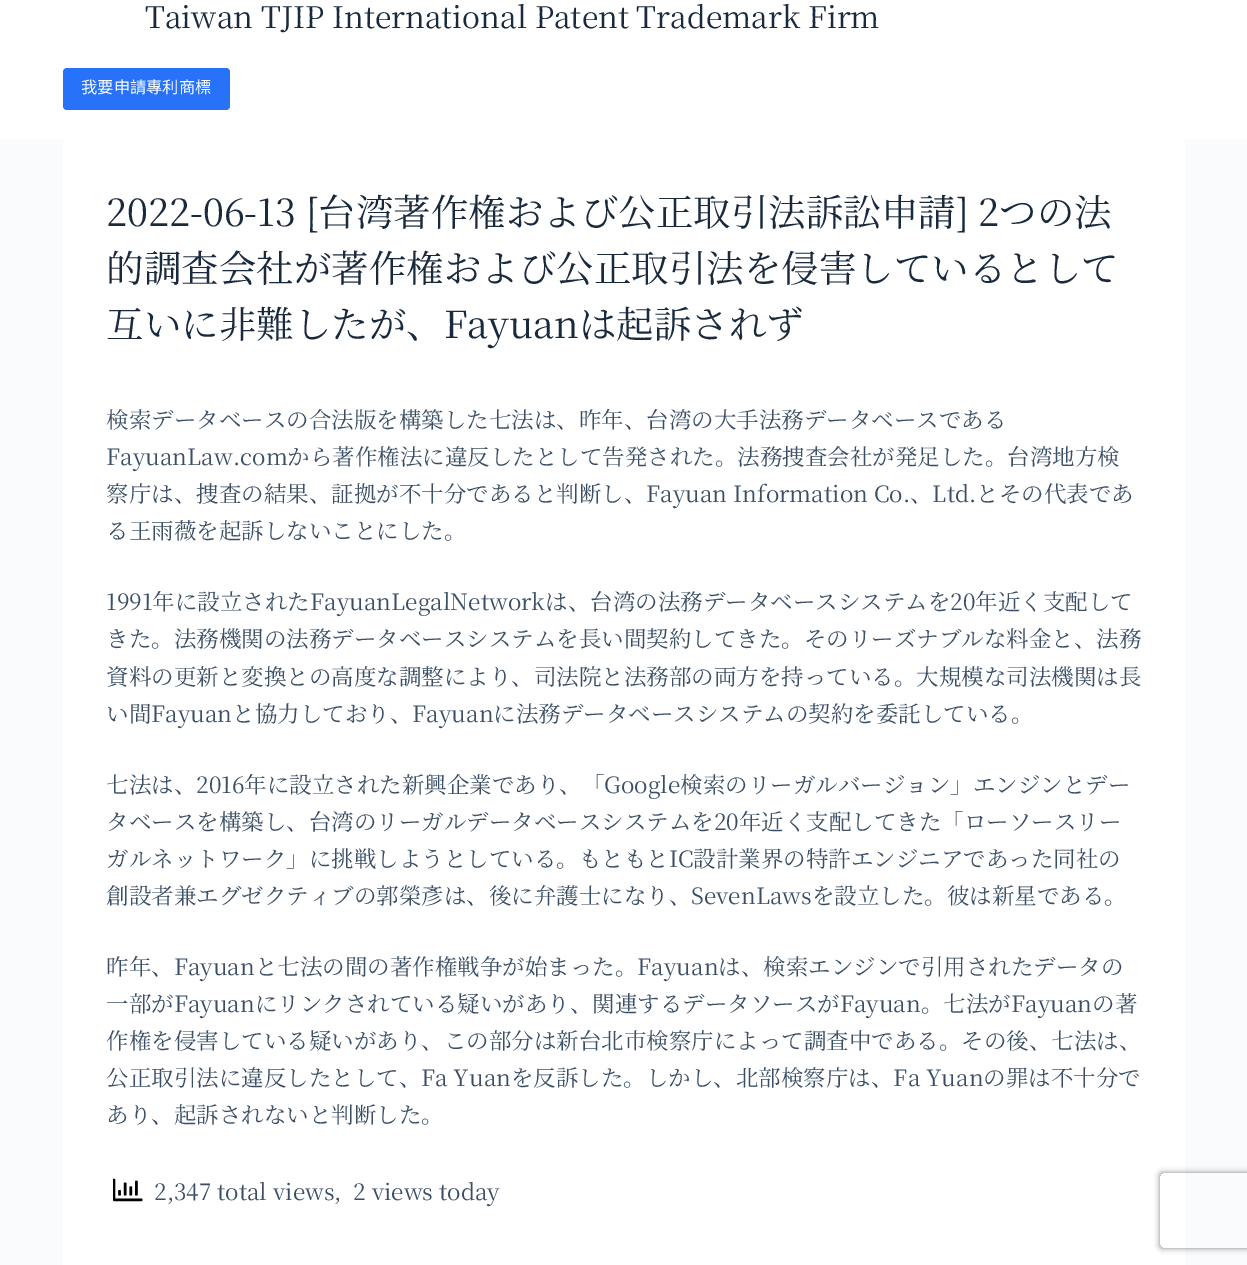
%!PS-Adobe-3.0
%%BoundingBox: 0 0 1247 1265
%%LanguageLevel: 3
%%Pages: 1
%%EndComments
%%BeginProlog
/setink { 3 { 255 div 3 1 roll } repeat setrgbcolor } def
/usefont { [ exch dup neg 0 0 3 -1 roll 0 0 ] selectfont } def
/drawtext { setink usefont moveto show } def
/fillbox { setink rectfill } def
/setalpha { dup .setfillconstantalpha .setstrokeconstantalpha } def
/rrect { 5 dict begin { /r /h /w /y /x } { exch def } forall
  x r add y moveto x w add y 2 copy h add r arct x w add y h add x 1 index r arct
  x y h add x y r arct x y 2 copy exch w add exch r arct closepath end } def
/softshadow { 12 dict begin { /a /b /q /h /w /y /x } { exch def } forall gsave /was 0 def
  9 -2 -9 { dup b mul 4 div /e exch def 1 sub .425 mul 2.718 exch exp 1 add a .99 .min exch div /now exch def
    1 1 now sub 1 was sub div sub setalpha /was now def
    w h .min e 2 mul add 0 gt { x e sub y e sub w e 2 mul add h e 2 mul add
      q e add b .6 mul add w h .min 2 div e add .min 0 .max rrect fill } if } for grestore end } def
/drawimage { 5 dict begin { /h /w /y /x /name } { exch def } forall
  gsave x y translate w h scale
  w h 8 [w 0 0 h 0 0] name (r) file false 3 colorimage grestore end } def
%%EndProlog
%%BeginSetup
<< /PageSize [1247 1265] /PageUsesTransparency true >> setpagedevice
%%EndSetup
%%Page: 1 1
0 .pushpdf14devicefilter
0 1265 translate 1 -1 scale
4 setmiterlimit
0 0 1247 1265 250 251 252 fillbox
0 0 1247 139 255 255 255 fillbox
(Taiwan TJIP International Patent Trademark Firm) 145 28 /NotoSerifJP-Regular 30 25 42 61 drawtext
40 114 250 setink
63 68 167 42 4 rrect fill
(我要申請專利商標) 81 93 /NotoSansCJKTC-Regular 16.25 255 255 255 drawtext
63 139 1122 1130 4 rrect fill
(2022-06-13 [台湾著作権および公正取引法訴訟申請] 2つの法) 106 226 /NotoSerifJP-Regular 37.5 25 42 61 drawtext
(的調査会社が著作権および公正取引法を侵害しているとして) 106 282 /NotoSerifJP-Regular 37.5 25 42 61 drawtext
(互いに非難したが、Fayuanは起訴されず) 106 338 /NotoSerifJP-Regular 37.5 25 42 61 drawtext
(検索データベースの合法版を構築した七法は、昨年、台湾の大手法務データベースである) 106 428 /NotoSerifJP-Regular 22.5 58 79 102 drawtext
(FayuanLaw.comから著作権法に違反したとして告発された。法務捜査会社が発足した。台湾地方検) 106 465 /NotoSerifJP-Regular 22.5 58 79 102 drawtext
(察庁は、捜査の結果、証拠が不十分であると判断し、Fayuan Information Co.、Ltd.とその代表であ) 106 502 /NotoSerifJP-Regular 22.5 58 79 102 drawtext
(る王雨薇を起訴しないことにした。) 106 539 /NotoSerifJP-Regular 22.5 58 79 102 drawtext
(1991年に設立されたFayuanLegalNetworkは、台湾の法務データベースシステムを20年近く支配して) 106 610 /NotoSerifJP-Regular 22.5 58 79 102 drawtext
(きた。法務機関の法務データベースシステムを長い間契約してきた。そのリーズナブルな料金と、法務) 106 647 /NotoSerifJP-Regular 22.5 58 79 102 drawtext
(資料の更新と変換との高度な調整により、司法院と法務部の両方を持っている。大規模な司法機関は長) 106 685 /NotoSerifJP-Regular 22.5 58 79 102 drawtext
(い間Fayuanと協力しており、Fayuanに法務データベースシステムの契約を委託している。) 106 722 /NotoSerifJP-Regular 22.5 58 79 102 drawtext
(七法は、2016年に設立された新興企業であり、「Google検索のリーガルバージョン」エンジンとデー) 106 793 /NotoSerifJP-Regular 22.5 58 79 102 drawtext
(タベースを構築し、台湾のリーガルデータベースシステムを20年近く支配してきた「ローソースリー) 106 830 /NotoSerifJP-Regular 22.5 58 79 102 drawtext
(ガルネットワーク」に挑戦しようとしている。もともとIC設計業界の特許エンジニアであった同社の) 106 867 /NotoSerifJP-Regular 22.5 58 79 102 drawtext
(創設者兼エグゼクティブの郭榮彥は、後に弁護士になり、SevenLawsを設立した。彼は新星である。) 106 904 /NotoSerifJP-Regular 22.5 58 79 102 drawtext
(昨年、Fayuanと七法の間の著作権戦争が始まった。Fayuanは、検索エンジンで引用されたデータの) 106 975 /NotoSerifJP-Regular 22.5 58 79 102 drawtext
(一部がFayuanにリンクされている疑いがあり、関連するデータソースがFayuan。七法がFayuanの著) 106 1012 /NotoSerifJP-Regular 22.5 58 79 102 drawtext
(作権を侵害している疑いがあり、この部分は新台北市検察庁によって調査中である。その後、七法は、) 106 1049 /NotoSerifJP-Regular 22.5 58 79 102 drawtext
(公正取引法に違反したとして、Fa Yuanを反訴した。しかし、北部検察庁は、Fa Yuanの罪は不十分で) 106 1086 /NotoSerifJP-Regular 22.5 58 79 102 drawtext
(あり、起訴されないと判断した。) 106 1123 /NotoSerifJP-Regular 22.5 58 79 102 drawtext
(assets/img1.rgb) 113 1178 30 24 drawimage
(2,347 total views,  2 views today) 154 1200 /NotoSerifJP-Regular 22.5 58 79 102 drawtext
gsave
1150 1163 moveto 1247 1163 lineto 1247 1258 lineto 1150 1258 lineto closepath 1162.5 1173 moveto 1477.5 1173 lineto 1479 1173 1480 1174 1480 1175.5 curveto 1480 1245.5 lineto 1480 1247 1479 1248 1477.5 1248 curveto 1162.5 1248 lineto 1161 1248 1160 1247 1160 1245.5 curveto 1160 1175.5 lineto 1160 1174 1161 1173 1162.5 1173 curveto closepath eoclip newpath
128 128 128 setink
1160 1173 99 75 2.5 3 1 softshadow
grestore
.poppdf14devicefilter showpage
%%EOF
